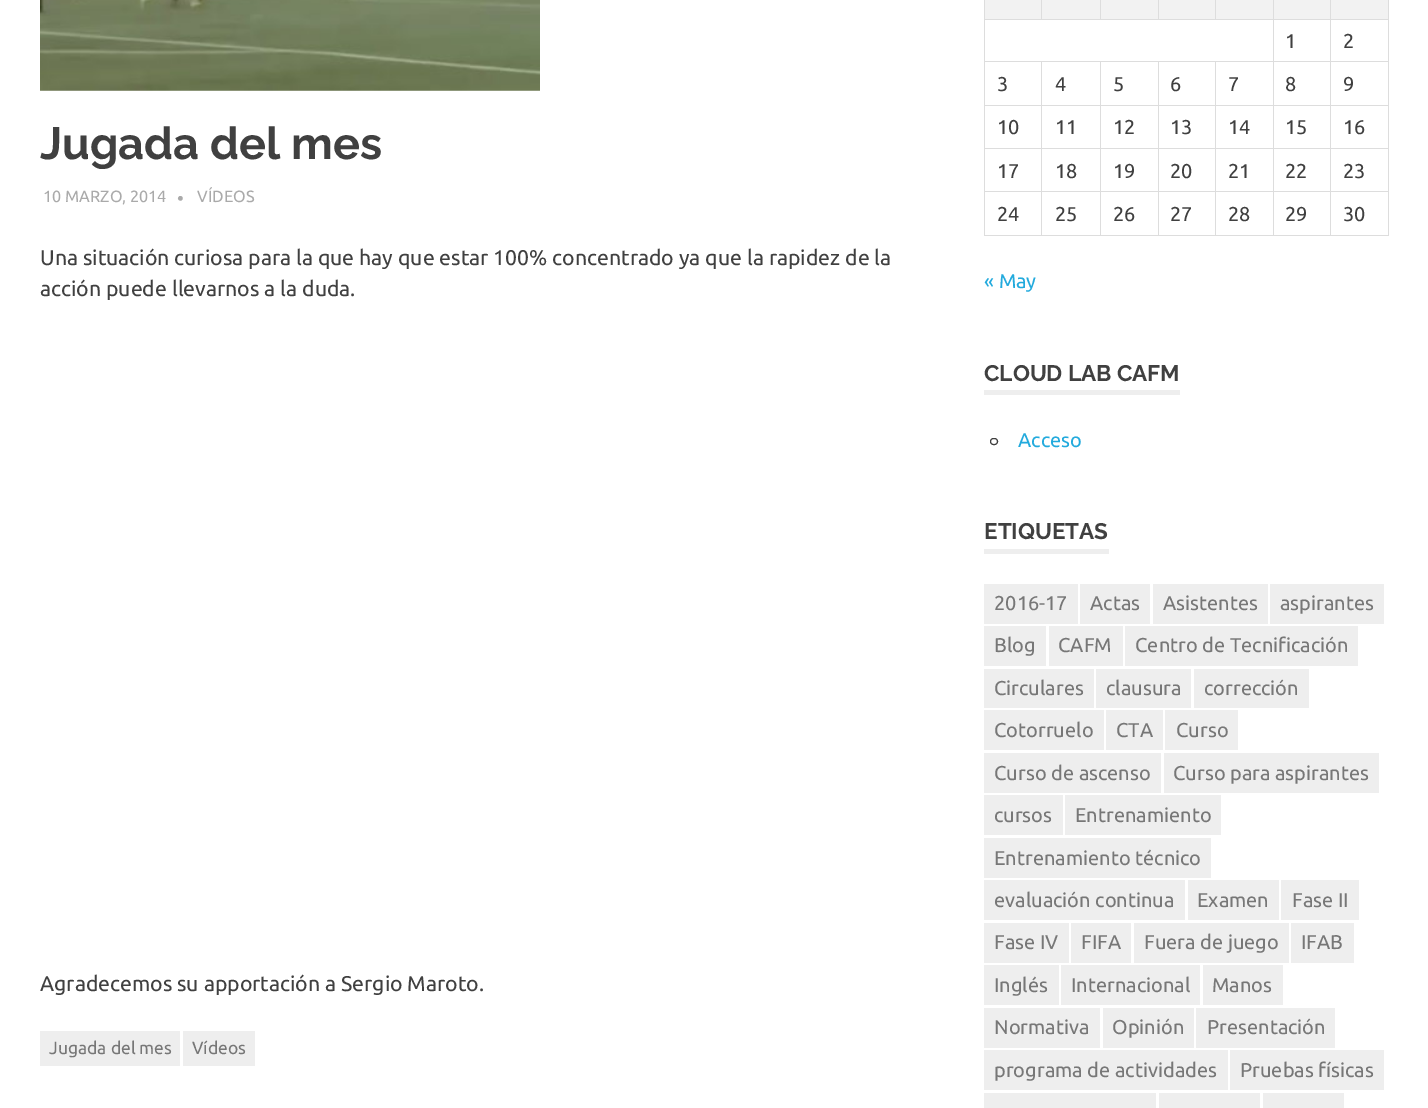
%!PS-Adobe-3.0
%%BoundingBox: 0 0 1428 1108
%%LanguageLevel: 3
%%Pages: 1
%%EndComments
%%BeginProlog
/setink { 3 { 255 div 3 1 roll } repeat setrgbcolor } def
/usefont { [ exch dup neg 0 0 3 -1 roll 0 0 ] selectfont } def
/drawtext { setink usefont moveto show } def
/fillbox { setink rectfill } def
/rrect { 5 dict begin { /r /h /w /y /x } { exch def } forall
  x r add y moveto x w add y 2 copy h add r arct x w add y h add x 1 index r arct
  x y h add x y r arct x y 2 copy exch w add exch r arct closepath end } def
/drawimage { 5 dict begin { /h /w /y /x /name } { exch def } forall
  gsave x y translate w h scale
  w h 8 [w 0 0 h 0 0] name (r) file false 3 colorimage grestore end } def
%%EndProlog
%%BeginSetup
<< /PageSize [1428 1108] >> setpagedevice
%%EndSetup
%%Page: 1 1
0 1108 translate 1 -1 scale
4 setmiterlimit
0 0 1428 1108 255 255 255 fillbox
(assets/img1.rgb) 40 0 500 91 drawimage
(Jugada del mes) 40 159 /Raleway-Thin 45 64 64 64 drawtext
(10 MARZO, 2014) 43 202 /Ubuntu-Regular 16.25 170 170 170 drawtext
(•) 177 205 /Ubuntu-Regular 19 170 170 170 drawtext
(VÍDEOS) 197 202 /Ubuntu-Regular 16.25 170 170 170 drawtext
(Una situación curiosa para la que hay que estar 100% concentrado ya que la rapidez de la) 40 265 /Ubuntu-Regular 21.25 64 64 64 drawtext
(acción puede llevarnos a la duda.) 40 296 /Ubuntu-Regular 21.25 64 64 64 drawtext
(Agradecemos su apportación a Sergio Maroto.) 40 991 /Ubuntu-Regular 21.25 64 64 64 drawtext
40 1031 140 35 238 238 238 fillbox
(Jugada del mes) 49 1054 /Ubuntu-Regular 17.5 119 119 119 drawtext
183 1031 72 35 238 238 238 fillbox
(Vídeos) 192 1054 /Ubuntu-Regular 17.5 119 119 119 drawtext
985 0 115 19 242 242 242 fillbox
1330 19 59 1 221 221 221 fillbox
1330 61 59 1 221 221 221 fillbox
1330 105 59 1 221 221 221 fillbox
1330 148 59 1 221 221 221 fillbox
1330 191 59 1 221 221 221 fillbox
1388 191 1 45 221 221 221 fillbox
1330 235 59 1 221 221 221 fillbox
1330 191 1 45 221 221 221 fillbox
1273 191 58 1 221 221 221 fillbox
1330 148 1 45 221 221 221 fillbox
1273 148 58 1 221 221 221 fillbox
1330 105 1 44 221 221 221 fillbox
1273 105 58 1 221 221 221 fillbox
1330 61 1 45 221 221 221 fillbox
1273 61 58 1 221 221 221 fillbox
1330 19 1 44 221 221 221 fillbox
1273 19 58 1 221 221 221 fillbox
1273 235 58 1 221 221 221 fillbox
1273 191 1 45 221 221 221 fillbox
1215 191 59 1 221 221 221 fillbox
1273 148 1 45 221 221 221 fillbox
1215 148 59 1 221 221 221 fillbox
1273 105 1 44 221 221 221 fillbox
1215 105 59 1 221 221 221 fillbox
1273 61 1 45 221 221 221 fillbox
1215 61 59 1 221 221 221 fillbox
1273 19 1 44 221 221 221 fillbox
984 19 290 1 221 221 221 fillbox
1041 0 1 20 221 221 221 fillbox
1101 0 57 19 242 242 242 fillbox
1100 0 1 20 221 221 221 fillbox
1159 0 56 19 242 242 242 fillbox
1158 0 1 20 221 221 221 fillbox
1216 0 57 19 242 242 242 fillbox
1215 0 1 20 221 221 221 fillbox
1274 0 56 19 242 242 242 fillbox
1273 0 1 20 221 221 221 fillbox
1331 0 57 19 242 242 242 fillbox
1330 0 1 20 221 221 221 fillbox
1215 235 59 1 221 221 221 fillbox
1215 191 1 45 221 221 221 fillbox
1158 191 58 1 221 221 221 fillbox
1215 148 1 45 221 221 221 fillbox
1158 148 58 1 221 221 221 fillbox
1215 105 1 44 221 221 221 fillbox
1158 105 58 1 221 221 221 fillbox
1215 61 1 45 221 221 221 fillbox
1158 61 58 1 221 221 221 fillbox
1158 235 58 1 221 221 221 fillbox
1158 191 1 45 221 221 221 fillbox
1100 191 59 1 221 221 221 fillbox
1158 148 1 45 221 221 221 fillbox
1100 148 59 1 221 221 221 fillbox
1158 105 1 44 221 221 221 fillbox
1100 105 59 1 221 221 221 fillbox
1158 61 1 45 221 221 221 fillbox
1100 61 59 1 221 221 221 fillbox
1100 235 59 1 221 221 221 fillbox
1100 191 1 45 221 221 221 fillbox
1041 191 60 1 221 221 221 fillbox
1100 148 1 45 221 221 221 fillbox
1041 148 60 1 221 221 221 fillbox
1100 105 1 44 221 221 221 fillbox
1041 105 60 1 221 221 221 fillbox
1100 61 1 45 221 221 221 fillbox
1041 61 60 1 221 221 221 fillbox
1041 235 60 1 221 221 221 fillbox
1041 191 1 45 221 221 221 fillbox
984 191 59 1 221 221 221 fillbox
1041 148 1 45 221 221 221 fillbox
984 148 59 1 221 221 221 fillbox
1041 105 1 44 221 221 221 fillbox
984 105 59 1 221 221 221 fillbox
1041 61 1 45 221 221 221 fillbox
984 61 59 1 221 221 221 fillbox
984 235 59 1 221 221 221 fillbox
984 191 1 45 221 221 221 fillbox
984 148 1 45 221 221 221 fillbox
984 105 1 44 221 221 221 fillbox
984 61 1 45 221 221 221 fillbox
984 0 1 63 221 221 221 fillbox
(1) 1285 48 /Ubuntu-Regular 20 64 64 64 drawtext
1388 148 1 45 221 221 221 fillbox
1388 105 1 44 221 221 221 fillbox
1388 61 1 45 221 221 221 fillbox
1388 0 1 63 221 221 221 fillbox
(2) 1343 48 /Ubuntu-Regular 20 64 64 64 drawtext
(3) 997 91 /Ubuntu-Regular 20 64 64 64 drawtext
(4) 1055 91 /Ubuntu-Regular 20 64 64 64 drawtext
(5) 1113 91 /Ubuntu-Regular 20 64 64 64 drawtext
(6) 1170 91 /Ubuntu-Regular 20 64 64 64 drawtext
(7) 1228 91 /Ubuntu-Regular 20 64 64 64 drawtext
(8) 1285 91 /Ubuntu-Regular 20 64 64 64 drawtext
(9) 1343 91 /Ubuntu-Regular 20 64 64 64 drawtext
(10) 997 134 /Ubuntu-Regular 20 64 64 64 drawtext
(11) 1055 134 /Ubuntu-Regular 20 64 64 64 drawtext
(12) 1113 134 /Ubuntu-Regular 20 64 64 64 drawtext
(13) 1170 134 /Ubuntu-Regular 20 64 64 64 drawtext
(14) 1228 134 /Ubuntu-Regular 20 64 64 64 drawtext
(15) 1285 134 /Ubuntu-Regular 20 64 64 64 drawtext
(16) 1343 134 /Ubuntu-Regular 20 64 64 64 drawtext
(17) 997 178 /Ubuntu-Regular 20 64 64 64 drawtext
(18) 1055 178 /Ubuntu-Regular 20 64 64 64 drawtext
(19) 1113 178 /Ubuntu-Regular 20 64 64 64 drawtext
(20) 1170 178 /Ubuntu-Regular 20 64 64 64 drawtext
(21) 1228 178 /Ubuntu-Regular 20 64 64 64 drawtext
(22) 1285 178 /Ubuntu-Regular 20 64 64 64 drawtext
(23) 1343 178 /Ubuntu-Regular 20 64 64 64 drawtext
(24) 997 221 /Ubuntu-Regular 20 64 64 64 drawtext
(25) 1055 221 /Ubuntu-Regular 20 64 64 64 drawtext
(26) 1113 221 /Ubuntu-Regular 20 64 64 64 drawtext
(27) 1170 221 /Ubuntu-Regular 20 64 64 64 drawtext
(28) 1228 221 /Ubuntu-Regular 20 64 64 64 drawtext
(29) 1285 221 /Ubuntu-Regular 20 64 64 64 drawtext
(30) 1343 221 /Ubuntu-Regular 20 64 64 64 drawtext
(« May) 984 288 /Ubuntu-Regular 20 34 170 221 drawtext
984 390 196 5 238 238 238 fillbox
(CLOUD LAB CAFM) 984 381 /Raleway-Thin 22.5 64 64 64 drawtext
990.5 438.5 7 6 3 rrect stroke
(Acceso) 1018 447 /Ubuntu-Regular 20 34 170 221 drawtext
984 549 125 5 238 238 238 fillbox
(ETIQUETAS) 984 539 /Raleway-Thin 22.5 64 64 64 drawtext
984 584 94 40 238 238 238 fillbox
(2016-17) 994 610 /Ubuntu-Regular 20 119 119 119 drawtext
1080 584 70 40 238 238 238 fillbox
(Actas) 1090 610 /Ubuntu-Regular 20 119 119 119 drawtext
1153 584 115 40 238 238 238 fillbox
(Asistentes) 1163 610 /Ubuntu-Regular 20 119 119 119 drawtext
1270 584 114 40 238 238 238 fillbox
(aspirantes) 1280 610 /Ubuntu-Regular 20 119 119 119 drawtext
984 626 62 40 238 238 238 fillbox
(Blog) 994 652 /Ubuntu-Regular 20 119 119 119 drawtext
1049 626 74 40 238 238 238 fillbox
(CAFM) 1058 652 /Ubuntu-Regular 20 119 119 119 drawtext
1125 626 233 40 238 238 238 fillbox
(Centro de Tecnificación) 1135 652 /Ubuntu-Regular 20 119 119 119 drawtext
984 669 110 39 238 238 238 fillbox
(Circulares) 994 695 /Ubuntu-Regular 20 119 119 119 drawtext
1096 669 95 39 238 238 238 fillbox
(clausura) 1106 695 /Ubuntu-Regular 20 119 119 119 drawtext
1194 669 115 39 238 238 238 fillbox
(corrección) 1204 695 /Ubuntu-Regular 20 119 119 119 drawtext
984 710 120 40 238 238 238 fillbox
(Cotorruelo) 994 737 /Ubuntu-Regular 20 119 119 119 drawtext
1106 710 57 40 238 238 238 fillbox
(CTA) 1116 737 /Ubuntu-Regular 20 119 119 119 drawtext
1165 710 73 40 238 238 238 fillbox
(Curso) 1176 737 /Ubuntu-Regular 20 119 119 119 drawtext
984 753 177 40 238 238 238 fillbox
(Curso de ascenso) 994 780 /Ubuntu-Regular 20 119 119 119 drawtext
1164 753 215 40 238 238 238 fillbox
(Curso para aspirantes) 1173 780 /Ubuntu-Regular 20 119 119 119 drawtext
984 795 79 40 238 238 238 fillbox
(cursos) 994 822 /Ubuntu-Regular 20 119 119 119 drawtext
1065 795 156 40 238 238 238 fillbox
(Entrenamiento) 1075 822 /Ubuntu-Regular 20 119 119 119 drawtext
984 838 227 40 238 238 238 fillbox
(Entrenamiento técnico) 994 865 /Ubuntu-Regular 20 119 119 119 drawtext
984 880 201 40 238 238 238 fillbox
(evaluación continua) 994 907 /Ubuntu-Regular 20 119 119 119 drawtext
1188 880 91 40 238 238 238 fillbox
(Examen) 1197 907 /Ubuntu-Regular 20 119 119 119 drawtext
1281 880 78 40 238 238 238 fillbox
(Fase II) 1292 907 /Ubuntu-Regular 20 119 119 119 drawtext
984 923 85 40 238 238 238 fillbox
(Fase IV) 994 949 /Ubuntu-Regular 20 119 119 119 drawtext
1071 923 60 40 238 238 238 fillbox
(FIFA) 1081 949 /Ubuntu-Regular 20 119 119 119 drawtext
1134 923 155 40 238 238 238 fillbox
(Fuera de juego) 1144 949 /Ubuntu-Regular 20 119 119 119 drawtext
1291 923 63 40 238 238 238 fillbox
(IFAB) 1301 949 /Ubuntu-Regular 20 119 119 119 drawtext
984 965 75 40 238 238 238 fillbox
(Inglés) 994 992 /Ubuntu-Regular 20 119 119 119 drawtext
1061 965 139 40 238 238 238 fillbox
(Internacional) 1071 992 /Ubuntu-Regular 20 119 119 119 drawtext
1203 965 80 40 238 238 238 fillbox
(Manos) 1212 992 /Ubuntu-Regular 20 119 119 119 drawtext
984 1008 116 40 238 238 238 fillbox
(Normativa) 994 1034 /Ubuntu-Regular 20 119 119 119 drawtext
1103 1008 91 40 238 238 238 fillbox
(Opinión) 1112 1034 /Ubuntu-Regular 20 119 119 119 drawtext
1196 1008 139 40 238 238 238 fillbox
(Presentación) 1207 1034 /Ubuntu-Regular 20 119 119 119 drawtext
984 1050 244 40 238 238 238 fillbox
(programa de actividades) 994 1077 /Ubuntu-Regular 20 119 119 119 drawtext
1230 1050 154 40 238 238 238 fillbox
(Pruebas físicas) 1240 1077 /Ubuntu-Regular 20 119 119 119 drawtext
984 1093 172 15 238 238 238 fillbox
1159 1093 101 15 238 238 238 fillbox
1263 1093 81 15 238 238 238 fillbox
showpage
%%EOF
